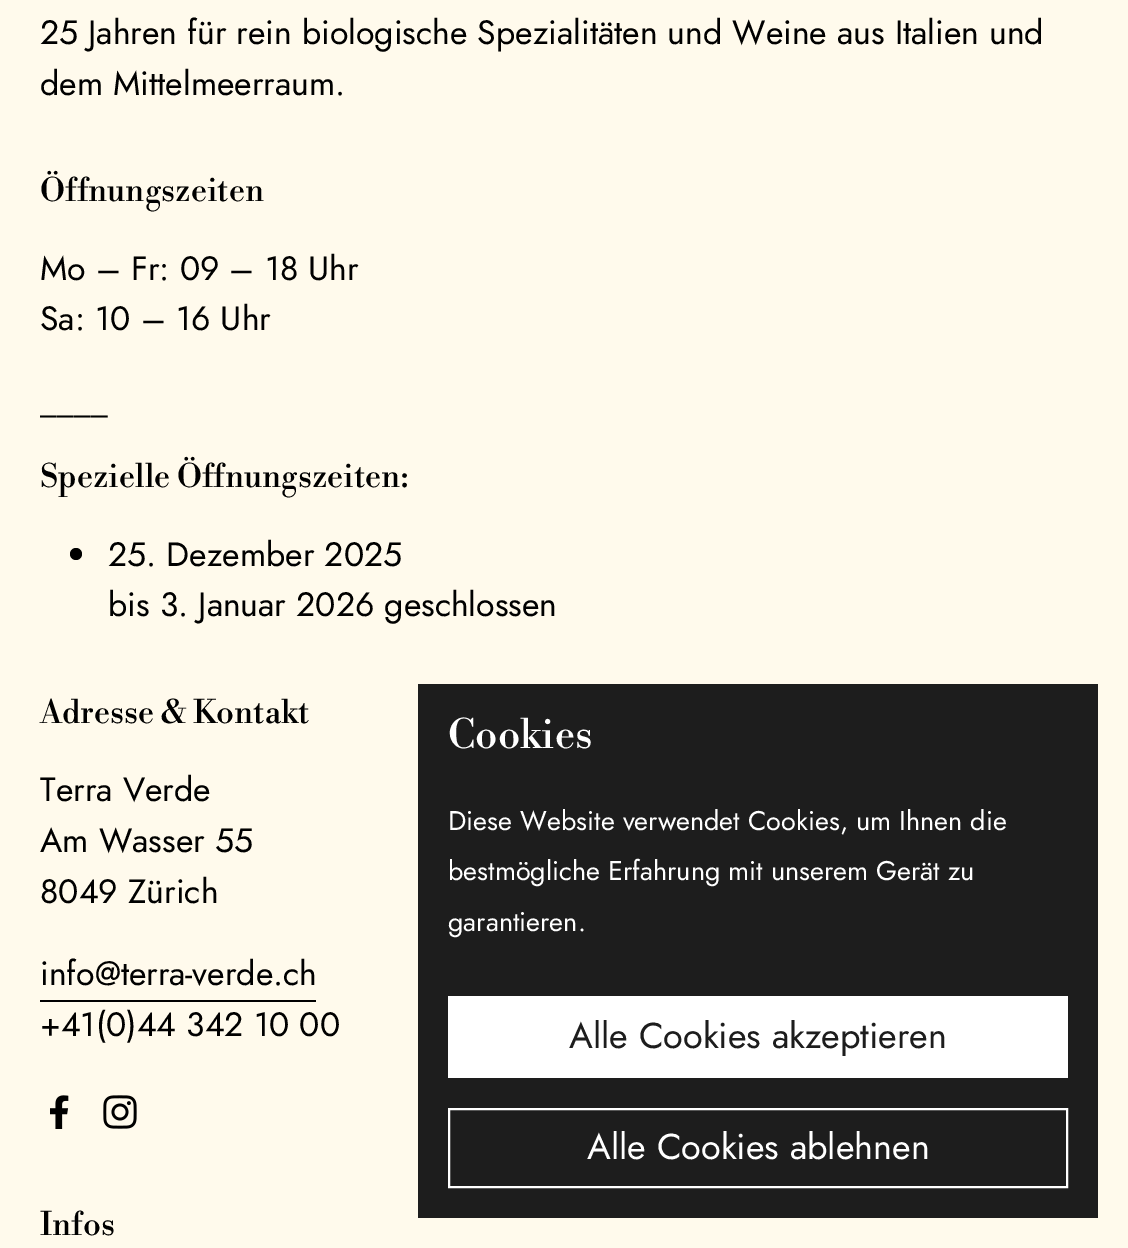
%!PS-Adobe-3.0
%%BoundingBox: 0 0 1128 1248
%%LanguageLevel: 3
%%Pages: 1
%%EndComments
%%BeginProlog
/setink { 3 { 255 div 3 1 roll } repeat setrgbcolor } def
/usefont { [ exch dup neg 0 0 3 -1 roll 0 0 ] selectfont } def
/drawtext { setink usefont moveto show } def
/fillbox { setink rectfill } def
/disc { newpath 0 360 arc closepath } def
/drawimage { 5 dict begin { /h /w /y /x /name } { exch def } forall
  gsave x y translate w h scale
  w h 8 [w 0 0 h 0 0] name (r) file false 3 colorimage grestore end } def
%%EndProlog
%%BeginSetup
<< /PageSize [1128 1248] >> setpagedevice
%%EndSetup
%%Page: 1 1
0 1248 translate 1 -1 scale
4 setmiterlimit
0 0 1128 1248 255 250 236 fillbox
(25 Jahren für rein biologische Spezialitäten und Weine aus Italien und) 40 44 /Jost-Regular 33.75 0 0 0 drawtext
(dem Mittelmeerraum.) 40 95 /Jost-Regular 33.75 0 0 0 drawtext
(Öffnungszeiten) 40 201 /LibreBodoni-Regular 32 0 0 0 drawtext
(Mo – Fr: 09 – 18 Uhr) 40 280 /Jost-Regular 33.75 0 0 0 drawtext
(Sa: 10 – 16 Uhr) 40 330 /Jost-Regular 33.75 0 0 0 drawtext
(____) 40 413 /Jost-Regular 33.75 0 0 0 drawtext
(Spezielle Öffnungszeiten:) 40 487 /LibreBodoni-Regular 32 0 0 0 drawtext
76 554 6 disc fill
(25. Dezember 2025) 108 566 /Jost-Regular 33.75 0 0 0 drawtext
(bis 3. Januar 2026 geschlossen) 108 616 /Jost-Regular 33.75 0 0 0 drawtext
(Adresse & Kontakt) 40 723 /LibreBodoni-Regular 32 0 0 0 drawtext
(Terra Verde) 40 801 /Jost-Regular 33.75 0 0 0 drawtext
(Am Wasser 55) 40 852 /Jost-Regular 33.75 0 0 0 drawtext
(8049 Zürich) 40 903 /Jost-Regular 33.75 0 0 0 drawtext
(info@terra-verde.ch) 40 985 /Jost-Regular 33.75 0 0 0 drawtext
40 1000 276 2 0 0 0 fillbox
(+41\(0\)44 342 10 00) 40 1036 /Jost-Regular 33.75 0 0 0 drawtext
(assets/img1.rgb) 50 1095 19 34 drawimage
(assets/img2.rgb) 103 1095 34 34 drawimage
(Infos) 40 1235 /LibreBodoni-Regular 32 0 0 0 drawtext
418 684 680 534 29 29 29 fillbox
(Cookies) 448 748 /LibreBodoni-Regular 40 255 255 255 drawtext
(Diese Website verwendet Cookies, um Ihnen die) 448 830 /Jost-Regular 27 255 255 255 drawtext
(bestmögliche Erfahrung mit unserem Gerät zu) 448 880 /Jost-Regular 27 255 255 255 drawtext
(garantieren.) 448 931 /Jost-Regular 27 255 255 255 drawtext
448 996 620 82 255 255 255 fillbox
(Alle Cookies akzeptieren) 569 1048 /Jost-Regular 36 29 29 29 drawtext
255 255 255 setink
2 setlinewidth
449 1109 618 78 rectstroke
(Alle Cookies ablehnen) 587 1159 /Jost-Regular 36 255 255 255 drawtext
showpage
%%EOF
